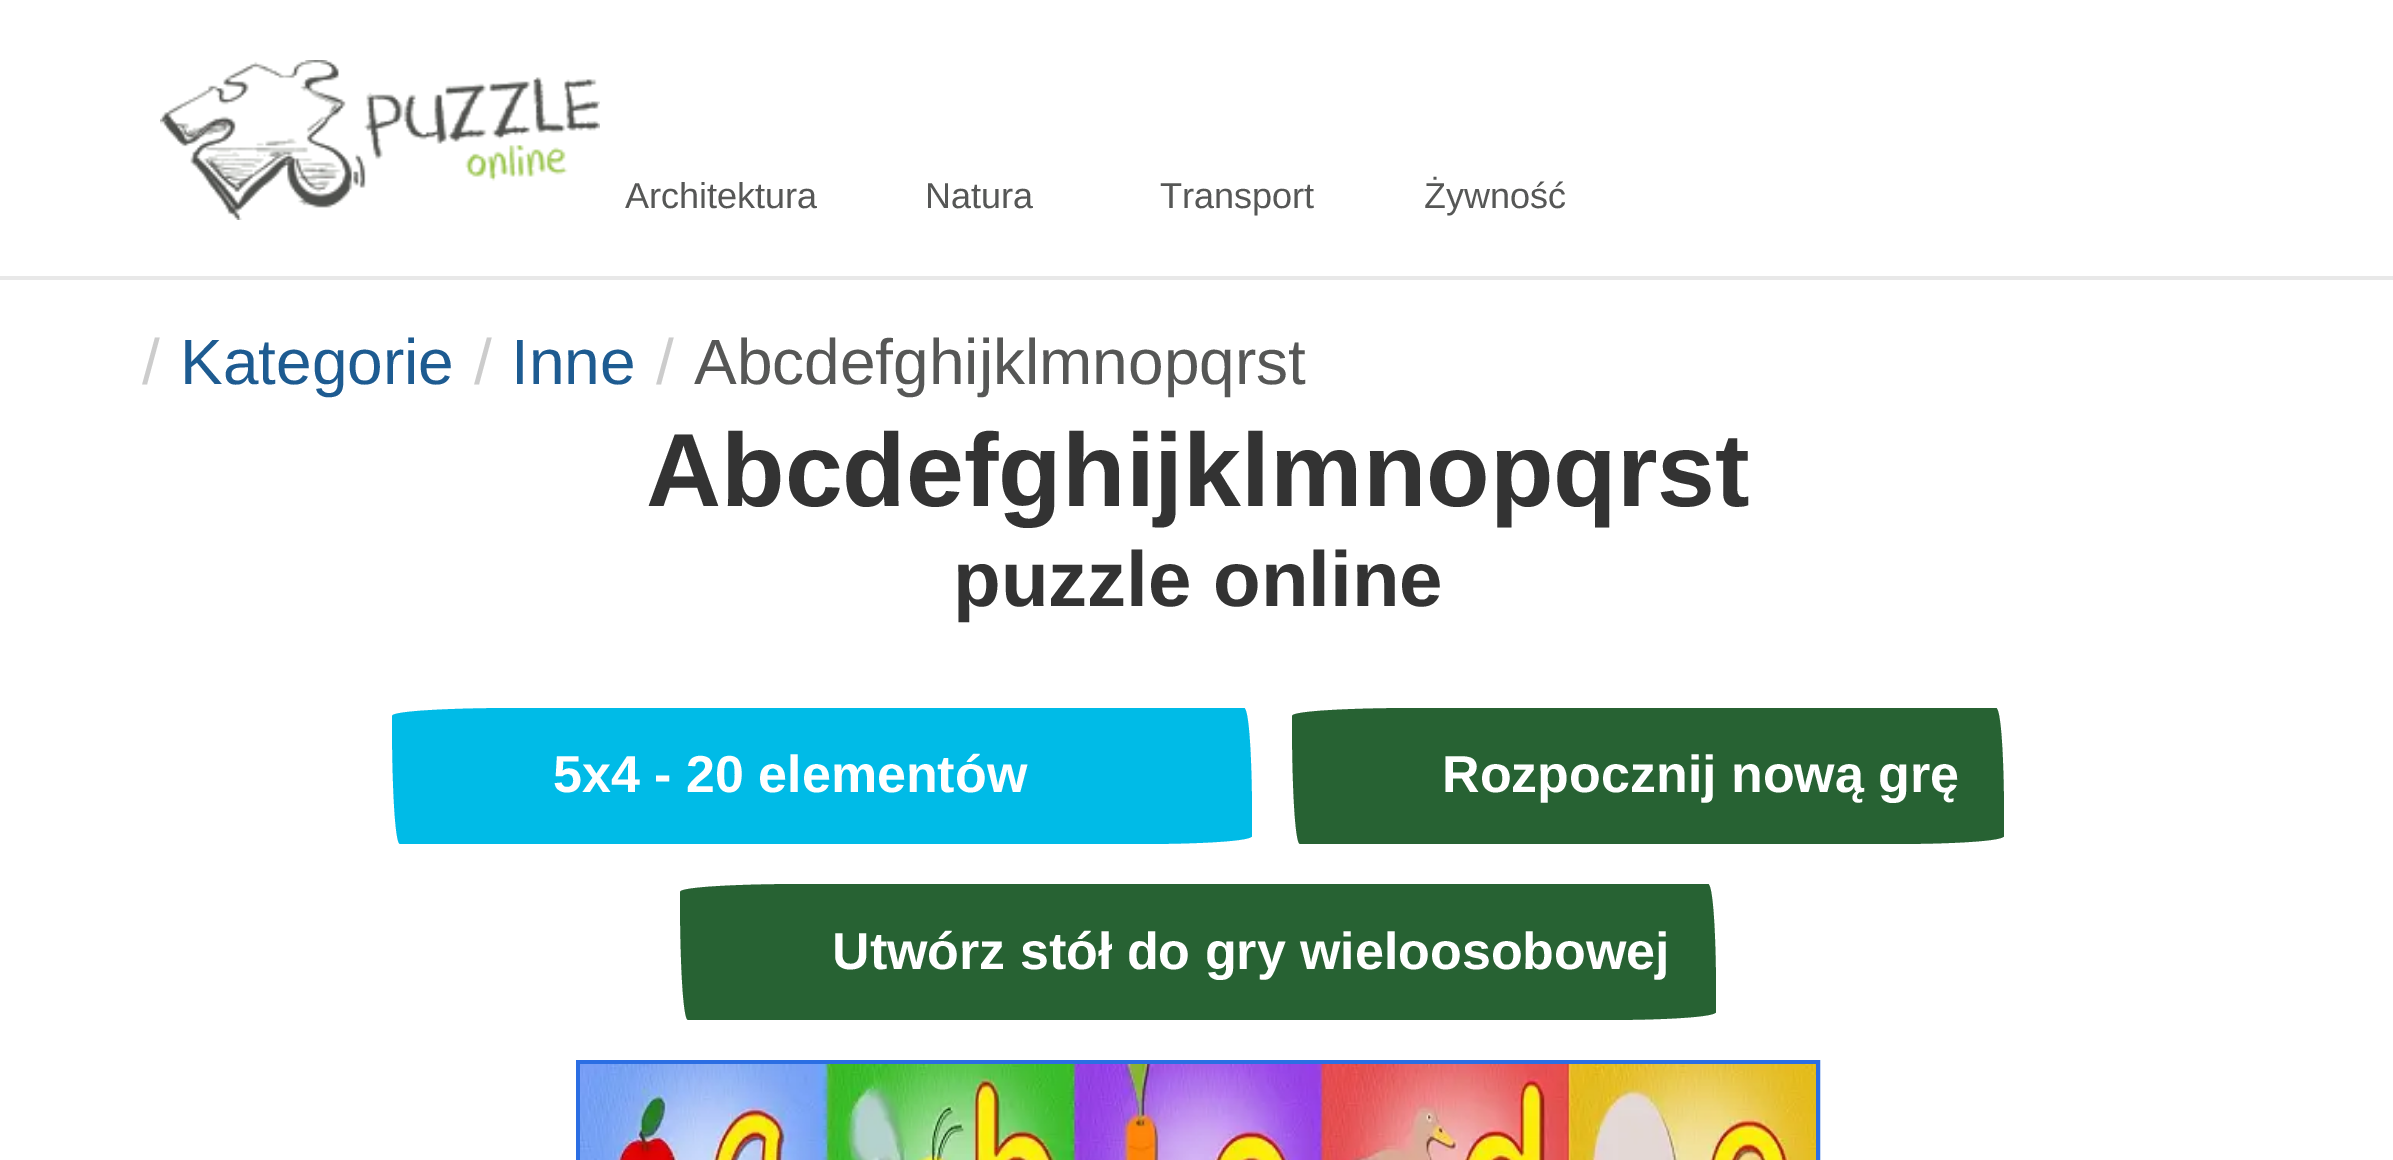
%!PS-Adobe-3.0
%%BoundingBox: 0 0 2393 1160
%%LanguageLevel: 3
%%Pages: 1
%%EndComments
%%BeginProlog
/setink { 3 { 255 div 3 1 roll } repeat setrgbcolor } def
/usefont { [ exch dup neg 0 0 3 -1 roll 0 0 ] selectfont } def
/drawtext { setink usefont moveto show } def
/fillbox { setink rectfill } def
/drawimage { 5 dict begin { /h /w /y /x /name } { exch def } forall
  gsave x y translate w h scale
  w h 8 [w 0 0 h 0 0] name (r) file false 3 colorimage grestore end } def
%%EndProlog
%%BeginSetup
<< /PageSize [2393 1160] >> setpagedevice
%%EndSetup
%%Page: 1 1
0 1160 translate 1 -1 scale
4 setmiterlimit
0 0 2393 1160 255 255 255 fillbox
0 276 2393 4 232 232 232 fillbox
(assets/img1.rgb) 160 60 440 160 drawimage
(Architektura) 625 208 /LiberationSans-Regular 36 86 87 86 drawtext
(Natura) 925 208 /LiberationSans-Regular 36 86 87 86 drawtext
(Transport) 1160 208 /LiberationSans-Regular 36 86 87 86 drawtext
(Żywność) 1424 208 /LiberationSans-Regular 36 86 87 86 drawtext
(/) 142 384 /LiberationSans-Regular 64 204 204 204 drawtext
(Kategorie) 180 384 /LiberationSans-Regular 64 29 91 145 drawtext
(/) 474 384 /LiberationSans-Regular 64 204 204 204 drawtext
(Inne) 511 384 /LiberationSans-Regular 64 29 91 145 drawtext
(/) 656 384 /LiberationSans-Regular 64 204 204 204 drawtext
(Abcdefghijklmnopqrst) 694 384 /LiberationSans-Regular 64 86 87 86 drawtext
(Abcdefghijklmnopqrst) 646 506 /LiberationSans-Bold 104 51 51 51 drawtext
(puzzle online) 953 606 /LiberationSans-Bold 78 51 51 51 drawtext
0 187 231 setink
520 708 moveto 1244 708 lineto 1249 708 1252 759 1252 821 curveto 1252 836 lineto 1252 841 1201 844 1139 844 curveto 400 844 lineto 395 844 392 786 392 716 curveto 392 711 450 708 520 708 curveto closepath fill
(5x4 - 20 elementów) 553 792 /LiberationSans-Bold 52 255 255 255 drawtext
39 98 51 setink
1420 708 moveto 1996 708 lineto 2001 708 2004 759 2004 821 curveto 2004 836 lineto 2004 841 1953 844 1891 844 curveto 1300 844 lineto 1295 844 1292 786 1292 716 curveto 1292 711 1350 708 1420 708 curveto closepath fill
(Rozpocznij nową grę) 1442 792 /LiberationSans-Bold 52 255 255 255 drawtext
39 98 51 setink
808 884 moveto 1708 884 lineto 1713 884 1716 935 1716 997 curveto 1716 1012 lineto 1716 1017 1665 1020 1603 1020 curveto 688 1020 lineto 683 1020 680 962 680 892 curveto 680 887 738 884 808 884 curveto closepath fill
(Utwórz stół do gry wieloosobowej) 832 969 /LiberationSans-Bold 52 255 255 255 drawtext
43 110 227 setink
4 setlinewidth
578 1062 1240 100 rectstroke
(assets/img2.rgb) 580 1064 1236 96 drawimage
showpage
%%EOF
